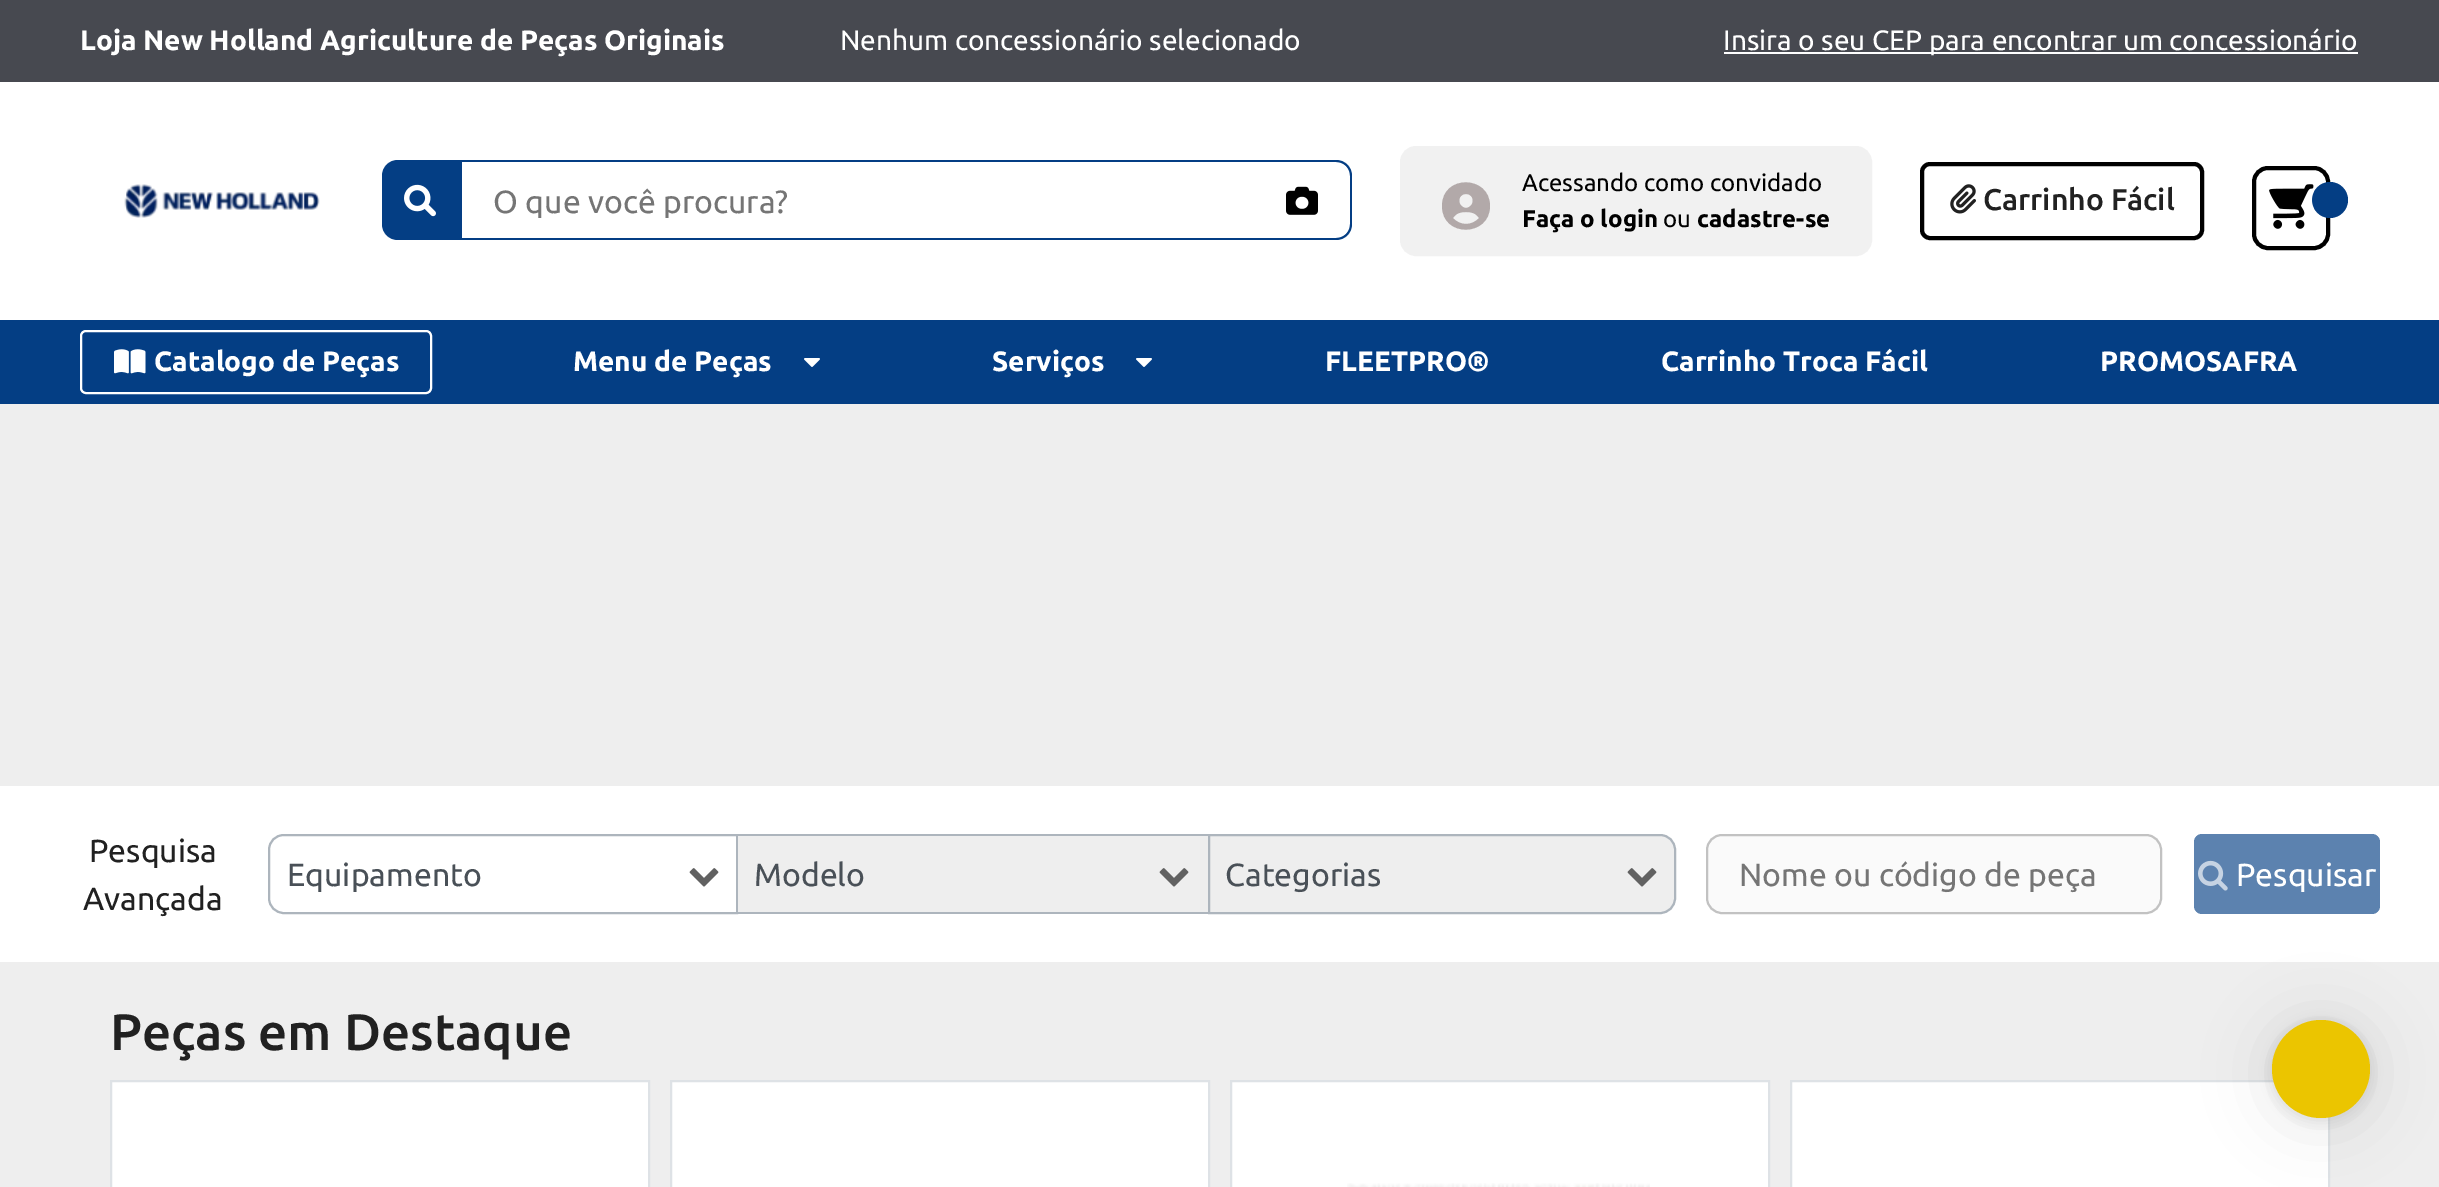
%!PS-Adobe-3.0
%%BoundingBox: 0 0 2439 1187
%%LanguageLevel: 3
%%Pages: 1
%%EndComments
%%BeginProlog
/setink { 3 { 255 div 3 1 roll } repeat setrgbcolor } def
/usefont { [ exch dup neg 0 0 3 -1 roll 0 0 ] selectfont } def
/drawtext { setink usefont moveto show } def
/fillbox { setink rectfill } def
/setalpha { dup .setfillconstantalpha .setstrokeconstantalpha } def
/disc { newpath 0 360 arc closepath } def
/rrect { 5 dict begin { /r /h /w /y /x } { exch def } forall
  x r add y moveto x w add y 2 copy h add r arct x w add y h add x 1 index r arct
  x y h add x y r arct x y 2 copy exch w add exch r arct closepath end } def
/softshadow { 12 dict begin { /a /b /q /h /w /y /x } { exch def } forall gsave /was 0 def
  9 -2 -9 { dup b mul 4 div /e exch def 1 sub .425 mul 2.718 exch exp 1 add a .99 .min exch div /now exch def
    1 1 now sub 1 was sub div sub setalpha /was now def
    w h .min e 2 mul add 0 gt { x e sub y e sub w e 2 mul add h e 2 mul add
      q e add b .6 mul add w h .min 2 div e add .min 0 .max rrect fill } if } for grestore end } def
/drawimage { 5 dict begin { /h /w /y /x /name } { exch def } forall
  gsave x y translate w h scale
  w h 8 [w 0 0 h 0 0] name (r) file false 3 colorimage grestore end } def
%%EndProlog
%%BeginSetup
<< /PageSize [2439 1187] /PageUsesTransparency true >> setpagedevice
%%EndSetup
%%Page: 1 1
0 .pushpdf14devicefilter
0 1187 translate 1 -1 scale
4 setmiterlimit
0 0 2439 1187 238 238 238 fillbox
0 82 2439 238 255 255 255 fillbox
0 0 2439 82 71 73 80 fillbox
(Loja New Holland Agriculture de Peças Originais) 80 50 /Ubuntu-Bold 28 255 255 255 drawtext
(Nenhum concessionário selecionado) 840 50 /Ubuntu-Regular 28 255 255 255 drawtext
1724 52 634 2 255 255 255 fillbox
(Insira o seu CEP para encontrar um concessionário) 1723 50 /Ubuntu-Regular 28 255 255 255 drawtext
(assets/img1.rgb) 124 184 196 34 drawimage
4 62 132 setink
398 160 moveto 462 160 lineto 462 240 lineto 398 240 lineto 389 240 382 233 382 224 curveto 382 176 lineto 382 167 389 160 398 160 curveto closepath fill
(assets/img2.rgb) 404 184 32 33 drawimage
462 160 moveto 1336 160 lineto 1345 160 1352 167 1352 176 curveto 1352 224 lineto 1352 233 1345 240 1336 240 curveto 462 240 lineto closepath 462 162 moveto 1336 162 lineto 1344 162 1350 168 1350 176 curveto 1350 224 lineto 1350 232 1344 238 1336 238 curveto 462 238 lineto closepath eofill
gsave
492 182 828 36 rectclip
(O que você procura?) 493 213 /Ubuntu-Regular 32 117 117 117 drawtext
grestore
(assets/img3.rgb) 1286 186 32 29 drawimage
241 241 241 setink
1401 147 470 108 15 rrect gsave fill grestore
2 setlinewidth
stroke
178 169 169 setink
1479 218 moveto 1476 213 1471 212 1466 212 curveto 1461 212 1456 213 1453 218 curveto 1460 226 1472 226 1479 218 curveto closepath 1442 206 moveto 1442 174 1490 175 1490 206 curveto 1490 237 1442 238 1442 206 curveto closepath 1466 208 moveto 1475 207 1475 194 1466 194 curveto 1457 194 1457 207 1466 208 curveto closepath fill
(Acessando como convidado) 1522 191 /Ubuntu-Regular 24 0 0 0 drawtext
(Faça o login) 1522 227 /Ubuntu-Bold 24 0 0 0 drawtext
(ou) 1663 227 /Ubuntu-Regular 24 0 0 0 drawtext
(cadastre-se) 1697 227 /Ubuntu-Bold 24 0 0 0 drawtext
4 setlinewidth
1922 164 280 74 8 rrect stroke
(assets/img4.rgb) 1950 184 26 30 drawimage
(Carrinho Fácil) 1983 210 /Ubuntu-Medium 30 33 33 33 drawtext
0 0 0 setink
2254 168 74 80 14 rrect stroke
4 62 132 setink
2330 200 18 disc fill
(assets/img5.rgb) 2269 184 45 45 drawimage
0 320 2439 84 4 62 132 fillbox
255 255 255 setink
2 setlinewidth
81 331 350 62 5 rrect stroke
(assets/img6.rgb) 114 349 32 25 drawimage
(Catalogo de Peças) 154 371 /Ubuntu-Bold 28 255 255 255 drawtext
(Menu de Peças) 573 371 /Ubuntu-Bold 28 255 255 255 drawtext
(assets/img7.rgb) 804 358 16 9 drawimage
(Serviços) 992 371 /Ubuntu-Bold 28 255 255 255 drawtext
(assets/img7.rgb) 1136 358 16 9 drawimage
(FLEETPRO®) 1325 371 /Ubuntu-Bold 28 255 255 255 drawtext
(Carrinho Troca Fácil) 1661 371 /Ubuntu-Bold 28 255 255 255 drawtext
(PROMOSAFRA) 2100 371 /Ubuntu-Bold 28 255 255 255 drawtext
0 786 2439 176 255 255 255 fillbox
(Pesquisa) 89 862 /Ubuntu-Regular 32 33 33 33 drawtext
(Avançada) 83 910 /Ubuntu-Regular 32 33 33 33 drawtext
173 181 189 setink
284 835 moveto 737 835 lineto 737 913 lineto 284 913 lineto 275.5 913 269 906.5 269 898 curveto 269 850 lineto 269 841.5 275.5 835 284 835 curveto closepath stroke
(Equipamento) 287 886 /Ubuntu-Regular 32 73 80 87 drawtext
(assets/img8.rgb) 689 868 30 19 drawimage
738 836 470 76 238 238 238 fillbox
738 834 470 2 173 181 189 fillbox
738 912 470 2 173 181 189 fillbox
(Modelo) 754 886 /Ubuntu-Regular 32 73 80 87 drawtext
(assets/img9.rgb) 1159 868 30 19 drawimage
238 238 238 setink
1209 835 moveto 1660 835 lineto 1668.5 835 1675 841.5 1675 850 curveto 1675 898 lineto 1675 906.5 1668.5 913 1660 913 curveto 1209 913 lineto closepath gsave fill grestore
173 181 189 setink
stroke
(Categorias) 1225 886 /Ubuntu-Regular 32 73 80 87 drawtext
(assets/img9.rgb) 1627 868 30 19 drawimage
250 250 250 setink
1707 835 454 78 15 rrect gsave fill grestore
194 194 194 setink
stroke
(Nome ou código de peça) 1739 886 /Ubuntu-Regular 32 117 117 117 drawtext
92 130 175 setink
2194 834 186 80 8 rrect fill
(assets/img10.rgb) 2198 860 30 31 drawimage
(Pesquisar) 2236 886 /Ubuntu-Regular 32 255 255 255 drawtext
(Peças em Destaque) 110 1050 /Ubuntu-Medium 51.25 33 33 33 drawtext
255 255 255 setink
111 1081 moveto 649 1081 lineto 649 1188 lineto 111 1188 lineto closepath gsave fill grestore
222 226 230 setink
stroke
255 255 255 setink
671 1081 moveto 1209 1081 lineto 1209 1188 lineto 671 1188 lineto closepath gsave fill grestore
222 226 230 setink
stroke
255 255 255 setink
1231 1081 moveto 1769 1081 lineto 1769 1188 lineto 1231 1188 lineto closepath gsave fill grestore
222 226 230 setink
stroke
(assets/img11.rgb) 1347 1183 303 4 drawimage
255 255 255 setink
1791 1081 moveto 2329 1081 lineto 2329 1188 lineto 1791 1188 lineto closepath gsave fill grestore
222 226 230 setink
stroke
0 0 0 setink
2272 1024 98 98 49 32 0.1 softshadow
2272 1022 98 98 49 6 0.1 softshadow
235 197 0 setink
2321 1069 49 disc fill
.poppdf14devicefilter showpage
%%EOF
